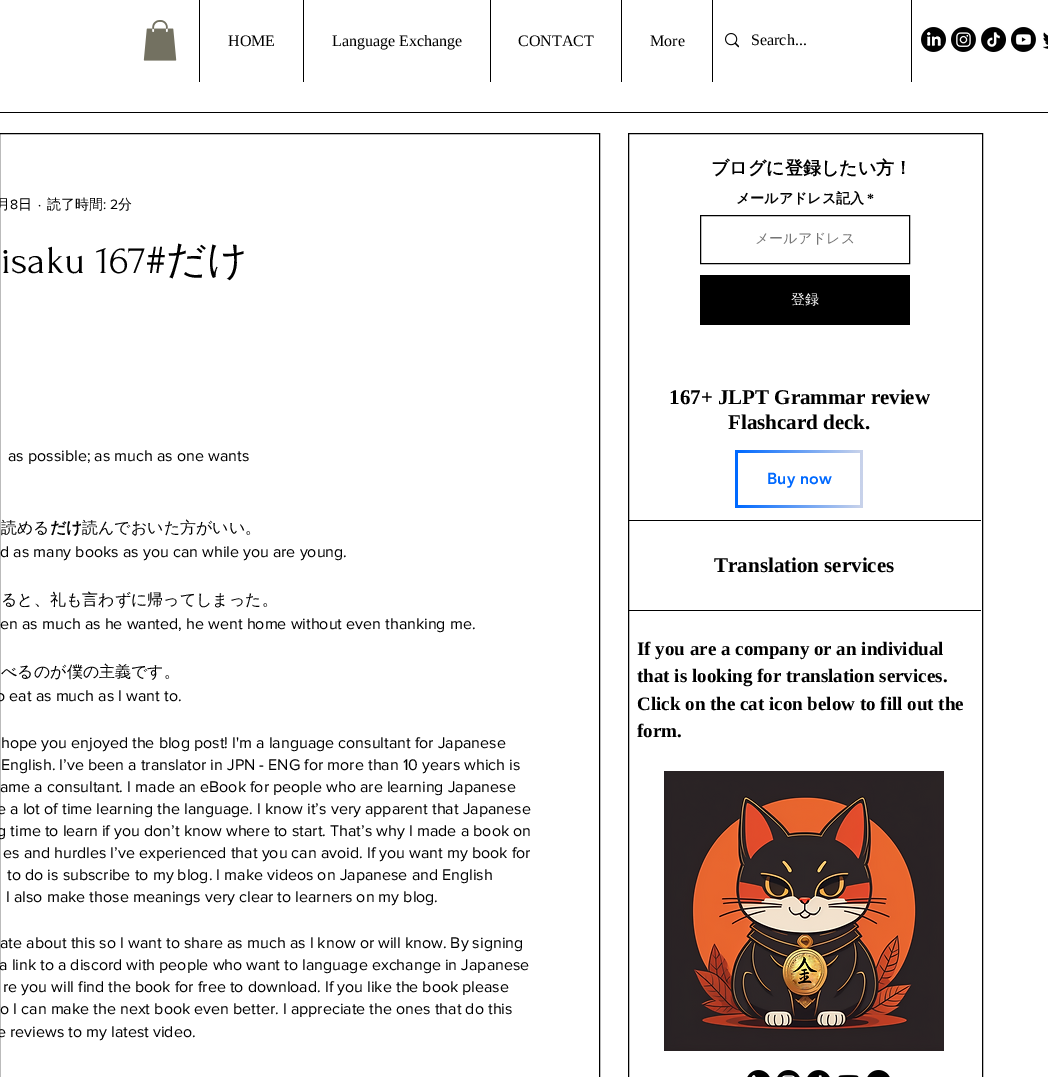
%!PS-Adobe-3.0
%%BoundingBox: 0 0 1048 1077
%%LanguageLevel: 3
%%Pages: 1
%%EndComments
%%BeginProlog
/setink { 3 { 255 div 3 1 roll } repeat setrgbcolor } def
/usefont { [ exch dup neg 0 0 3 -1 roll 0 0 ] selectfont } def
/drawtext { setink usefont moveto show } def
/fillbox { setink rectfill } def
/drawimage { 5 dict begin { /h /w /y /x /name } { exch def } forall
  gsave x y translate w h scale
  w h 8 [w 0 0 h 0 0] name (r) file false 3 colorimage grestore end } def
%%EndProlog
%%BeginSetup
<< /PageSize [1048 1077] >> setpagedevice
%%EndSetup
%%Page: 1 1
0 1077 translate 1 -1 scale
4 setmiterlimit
0 0 1048 1077 255 255 255 fillbox
(assets/img1.rgb) 143 20 34 41 drawimage
199 0 1 82 0 0 0 fillbox
(HOME) 228 46 /LiberationSerif-Regular 16 0 0 0 drawtext
303 0 1 82 0 0 0 fillbox
(Language Exchange) 332 46 /LiberationSerif-Regular 16 0 0 0 drawtext
490 0 1 82 0 0 0 fillbox
(CONTACT) 518 46 /LiberationSerif-Regular 16 0 0 0 drawtext
621 0 1 82 0 0 0 fillbox
(More) 650 46 /LiberationSerif-Regular 16 0 0 0 drawtext
712 0 1 82 0 0 0 fillbox
(assets/img2.rgb) 725 33 14 15 drawimage
(Search...) 751 45 /LiberationSerif-Regular 16 0 0 0 drawtext
911 0 1 82 0 0 0 fillbox
(assets/img3.rgb) 921 27 25 25 drawimage
(assets/img4.rgb) 951 27 25 25 drawimage
(assets/img5.rgb) 981 27 25 25 drawimage
(assets/img6.rgb) 1011 27 25 25 drawimage
(assets/img7.rgb) 1043 32 5 17 drawimage
0 112 1048 1 0 0 0 fillbox
-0.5 133.5 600 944 rectstroke
(月) -4 209 /WenQuanYiZenHei-Medium 14 0 0 0 drawtext
(8) 10 209 /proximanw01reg-Regular 14 0 0 0 drawtext
(日) 18 209 /WenQuanYiZenHei-Medium 14 0 0 0 drawtext
(·) 38 209 /proximanw01reg-Regular 14 0 0 0 drawtext
(読了時間) 47 209 /WenQuanYiZenHei-Medium 14 0 0 0 drawtext
(: 2) 103 209 /proximanw01reg-Regular 14 0 0 0 drawtext
(分) 118 209 /WenQuanYiZenHei-Medium 14 0 0 0 drawtext
(isaku 167#) 1 273 /Forum-Regular 40 0 0 0 drawtext
(だけ) 166 273 /WenQuanYiZenHei-Medium 40 0 0 0 drawtext
(as possible; as much as one wants) 8 461 /proximanw01reg-Regular 16 0 0 0 drawtext
(読める) 1 533 /WenQuanYiZenHei-Medium 16 0 0 0 drawtext
(だけ) 50 533 /WenQuanYiZenHei-Bold 16 0 0 0 drawtext
(読んでおいた方がいい。) 82 533 /WenQuanYiZenHei-Medium 16 0 0 0 drawtext
(d as many books as you can while you are young.) 0 557 /proximanw01reg-Regular 16 0 0 0 drawtext
(ると、礼も言わずに帰ってしまった。) 1 605 /WenQuanYiZenHei-Medium 16 0 0 0 drawtext
(en as much as he wanted, he went home without even thanking me.) 0 629 /proximanw01reg-Regular 16 0 0 0 drawtext
(べるのが僕の主義です。) 1 677 /WenQuanYiZenHei-Medium 16 0 0 0 drawtext
(o eat as much as I want to.) -4 701 /proximanw01reg-Regular 16 0 0 0 drawtext
(hope you enjoyed the blog post! I'm a language consultant for Japanese) 1 748 /proximanw01reg-Regular 16 0 0 0 drawtext
(English. I’ve been a translator in JPN - ENG for more than 10 years which is) 1 770 /proximanw01reg-Regular 16 0 0 0 drawtext
(ame a consultant. I made an eBook for people who are learning Japanese) 0 792 /proximanw01reg-Regular 16 0 0 0 drawtext
(e a lot of time learning the language. I know it’s very apparent that Japanese) -3 814 /proximanw01reg-Regular 16 0 0 0 drawtext
(g time to learn if you don’t know where to start. That’s why I made a book on) -3 836 /proximanw01reg-Regular 16 0 0 0 drawtext
(es and hurdles I’ve experienced that you can avoid. If you want my book for) 3 858 /proximanw01reg-Regular 16 0 0 0 drawtext
(to do is subscribe to my blog. I make videos on Japanese and English) 7 880 /proximanw01reg-Regular 16 0 0 0 drawtext
(I also make those meanings very clear to learners on my blog.) 6 902 /proximanw01reg-Regular 16 0 0 0 drawtext
(ate about this so I want to share as much as I know or will know. By signing) 0 948 /proximanw01reg-Regular 16 0 0 0 drawtext
(a link to a discord with people who want to language exchange in Japanese) -1 970 /proximanw01reg-Regular 16 0 0 0 drawtext
(re you will find the book for free to download. If you like the book please) 3 992 /proximanw01reg-Regular 16 0 0 0 drawtext
(o I can make the next book even better. I appreciate the ones that do this) 0 1014 /proximanw01reg-Regular 16 0 0 0 drawtext
(e reviews to my latest video.) -3 1037 /proximanw01reg-Regular 16 0 0 0 drawtext
628.5 133.5 354 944 rectstroke
(ブログに登録したい方！) 711 174 /WenQuanYiZenHei-Bold 18 0 0 0 drawtext
(メールアドレス記入) 736 203 /WenQuanYiZenHei-Bold 14 0 0 0 drawtext
(*) 867 203 /LiberationSerif-Bold 14 0 0 0 drawtext
700.5 215.5 209 48 rectstroke
(メールアドレス) 755 243 /WenQuanYiZenHei-Medium 14 117 117 117 drawtext
700 275 210 50 0 0 0 fillbox
(登録) 791 304 /WenQuanYiZenHei-Medium 14 255 255 255 drawtext
(167+ JLPT Grammar review) 669 404 /LiberationSerif-Bold 21 0 0 0 drawtext
(Flashcard deck.) 728 429 /LiberationSerif-Bold 21 0 0 0 drawtext
(assets/img8.rgb) 735 450 128 58 drawimage
(Buy now) 767 484 /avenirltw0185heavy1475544-Black 16 0 105 255 drawtext
628 520 353 1 0 0 0 fillbox
(Translation services) 714 572 /LiberationSerif-Bold 21 0 0 0 drawtext
628 610 353 1 0 0 0 fillbox
(If you are a company or an individual) 637 655 /LiberationSerif-Bold 19 0 0 0 drawtext
(that is looking for translation services.) 637 682 /LiberationSerif-Bold 19 0 0 0 drawtext
(Click on the cat icon below to fill out the) 637 710 /LiberationSerif-Bold 19 0 0 0 drawtext
(form.) 637 737 /LiberationSerif-Bold 19 0 0 0 drawtext
(assets/img9.rgb) 664 771 280 280 drawimage
(assets/img10.rgb) 747 1070 23 7 drawimage
(assets/img11.rgb) 777 1070 23 7 drawimage
(assets/img12.rgb) 807 1070 23 7 drawimage
(assets/img13.rgb) 838 1074 21 3 drawimage
(assets/img14.rgb) 867 1070 23 7 drawimage
showpage
%%EOF
